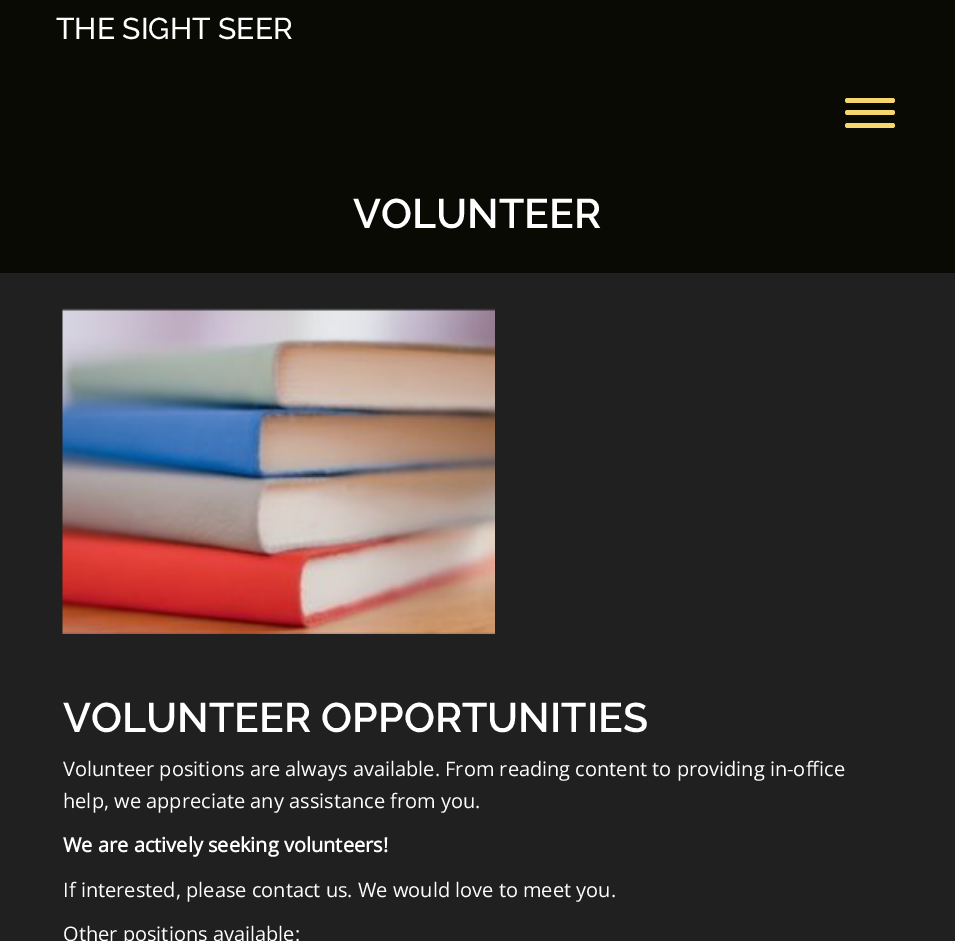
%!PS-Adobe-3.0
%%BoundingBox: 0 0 955 941
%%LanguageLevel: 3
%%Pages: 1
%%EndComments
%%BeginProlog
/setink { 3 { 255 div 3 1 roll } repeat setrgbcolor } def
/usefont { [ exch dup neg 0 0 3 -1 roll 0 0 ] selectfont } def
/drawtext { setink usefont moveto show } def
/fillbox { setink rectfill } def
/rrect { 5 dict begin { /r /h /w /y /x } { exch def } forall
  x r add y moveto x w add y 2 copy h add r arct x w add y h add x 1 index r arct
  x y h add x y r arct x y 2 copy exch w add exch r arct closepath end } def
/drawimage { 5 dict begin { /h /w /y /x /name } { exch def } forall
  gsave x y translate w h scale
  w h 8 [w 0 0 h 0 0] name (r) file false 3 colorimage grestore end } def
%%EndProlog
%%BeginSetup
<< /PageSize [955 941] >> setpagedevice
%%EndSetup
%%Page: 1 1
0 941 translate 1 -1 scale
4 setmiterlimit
0 0 955 941 10 10 5 fillbox
(THE SIGHT SEER) 56 39 /Raleway-Medium 30 255 255 255 drawtext
245 215 110 setink
845 123 50 5 2.5 rrect fill
845 98 50 5 2.5 rrect fill
845 110 50 5 2.5 rrect fill
(VOLUNTEER) 353 228 /Raleway-SemiBold 41.25 255 255 255 drawtext
0 273 955 668 32 32 32 fillbox
(assets/img1.rgb) 62 308 433 326 drawimage
(VOLUNTEER OPPORTUNITIES) 63 732 /Raleway-SemiBold 41.25 255 255 255 drawtext
(Volunteer positions are always available. From reading content to providing in-office) 63 776 /OpenSans-Regular 20 255 255 255 drawtext
(help, we appreciate any assistance from you.) 63 808 /OpenSans-Regular 20 255 255 255 drawtext
(We are actively seeking volunteers!) 63 852 /OpenSans-Bold 20 255 255 255 drawtext
(If interested, please contact us. We would love to meet you.) 63 897 /OpenSans-Regular 20 255 255 255 drawtext
(Other positions available:) 63 941 /OpenSans-Regular 20 255 255 255 drawtext
showpage
%%EOF
